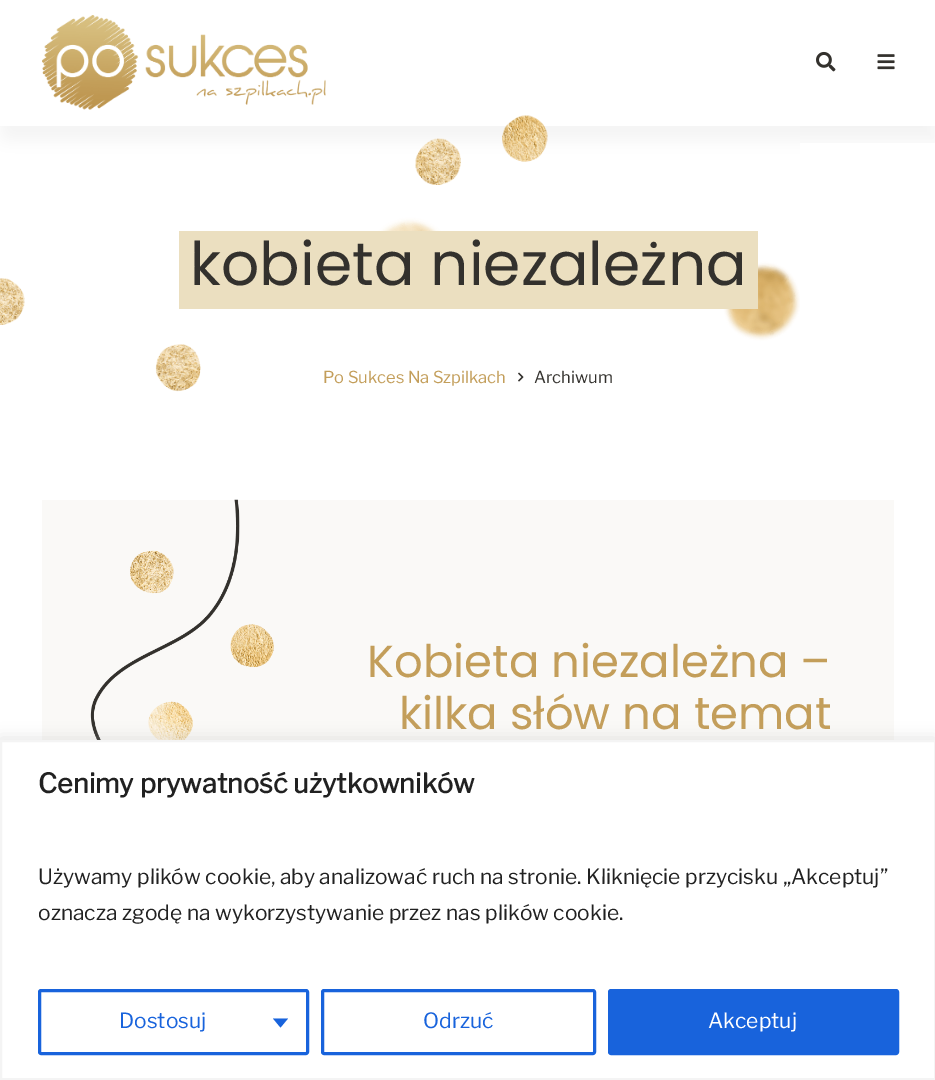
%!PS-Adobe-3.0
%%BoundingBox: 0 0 935 1080
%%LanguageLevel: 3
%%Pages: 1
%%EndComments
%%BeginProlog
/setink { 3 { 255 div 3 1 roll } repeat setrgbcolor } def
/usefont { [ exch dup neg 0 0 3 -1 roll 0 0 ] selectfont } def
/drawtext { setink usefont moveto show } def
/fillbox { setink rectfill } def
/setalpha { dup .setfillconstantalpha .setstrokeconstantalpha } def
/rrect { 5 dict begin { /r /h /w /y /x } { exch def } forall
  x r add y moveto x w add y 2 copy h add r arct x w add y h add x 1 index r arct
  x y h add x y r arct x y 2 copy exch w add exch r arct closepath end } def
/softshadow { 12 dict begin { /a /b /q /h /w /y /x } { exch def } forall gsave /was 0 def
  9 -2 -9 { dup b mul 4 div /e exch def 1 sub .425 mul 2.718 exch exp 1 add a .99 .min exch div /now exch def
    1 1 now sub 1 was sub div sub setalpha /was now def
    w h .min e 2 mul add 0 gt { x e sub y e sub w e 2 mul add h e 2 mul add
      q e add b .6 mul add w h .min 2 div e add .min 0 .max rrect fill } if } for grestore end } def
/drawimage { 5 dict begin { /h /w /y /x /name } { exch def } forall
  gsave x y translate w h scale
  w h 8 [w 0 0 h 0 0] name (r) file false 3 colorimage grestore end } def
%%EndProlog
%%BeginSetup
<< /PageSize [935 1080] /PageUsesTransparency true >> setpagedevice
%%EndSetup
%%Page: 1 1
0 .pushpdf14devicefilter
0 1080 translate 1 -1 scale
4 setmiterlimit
0 0 935 1080 255 255 255 fillbox
gsave
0 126 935 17 rectclip
40 40 40 setink
0 15 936 126 0 7.5 0.05 softshadow
grestore
(assets/img1.rgb) 42 15 284 95 drawimage
(assets/img2.rgb) 816 51 20 21 drawimage
(assets/img3.rgb) 877 54 18 16 drawimage
(assets/img4.rgb) 0 115 800 277 drawimage
179 231 579 78 235 223 192 fillbox
(kobieta niezależna) 190 285 /Poppins-Regular 60 51 49 45 drawtext
(Po Sukces Na Szpilkach) 323 383 /LibreFranklin-Thin 16.5 195 158 90 drawtext
(assets/img5.rgb) 518 372 6 10 drawimage
(Archiwum) 534 383 /LibreFranklin-Thin 16.5 51 49 45 drawtext
42 500 852 240 250 249 247 fillbox
(assets/img6.rgb) 90 499 184 241 drawimage
(Kobieta niezależna –) 367 677 /Poppins-Regular 45 195 158 90 drawtext
(kilka słów na temat) 399 729 /Poppins-Regular 45 195 158 90 drawtext
172 171 171 setink
0 738 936 341 0 7.5 0.3 softshadow
255 255 255 setink
1 741 moveto 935 741 lineto 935 1079 lineto 1 1079 lineto closepath gsave fill grestore
244 244 244 setink
2 setlinewidth
stroke
(Cenimy prywatność użytkowników) 38 793 /LibreFranklin-Bold 27 33 33 33 drawtext
(Używamy plików cookie, aby analizować ruch na stronie. Kliknięcie przycisku „Akceptuj”) 38 884 /LibreFranklin-Thin 21 33 33 33 drawtext
(oznacza zgodę na wykorzystywanie przez nas plików cookie.) 38 920 /LibreFranklin-Thin 21 33 33 33 drawtext
24 99 220 setink
3 setlinewidth
39.5 990.5 268 63 1.5 rrect stroke
(Dostosuj) 119 1028 /LibreFranklin-Thin 21 24 99 220 drawtext
273 1018.5 moveto 288 1018.5 lineto 280.5 1027.5 lineto closepath fill
322.5 990.5 272 63 1.5 rrect stroke
(Odrzuć) 423 1028 /LibreFranklin-Thin 21 24 99 220 drawtext
609.5 990.5 288 63 1.5 rrect gsave fill grestore
stroke
(Akceptuj) 708 1028 /LibreFranklin-Thin 21 255 255 255 drawtext
.poppdf14devicefilter showpage
%%EOF
